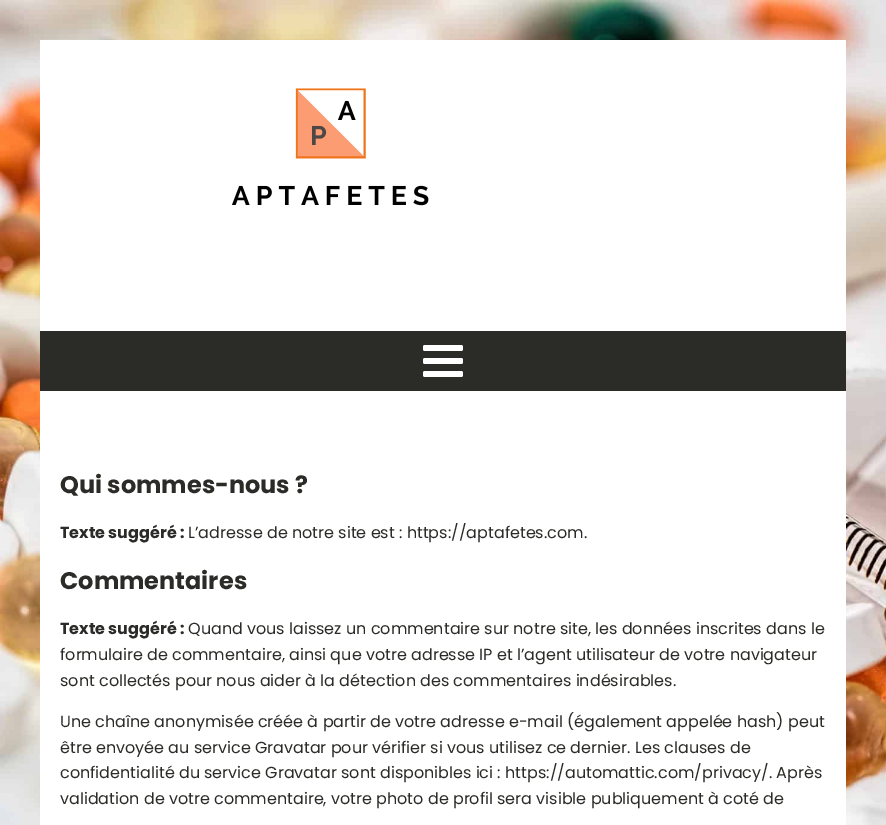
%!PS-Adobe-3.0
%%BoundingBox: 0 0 886 825
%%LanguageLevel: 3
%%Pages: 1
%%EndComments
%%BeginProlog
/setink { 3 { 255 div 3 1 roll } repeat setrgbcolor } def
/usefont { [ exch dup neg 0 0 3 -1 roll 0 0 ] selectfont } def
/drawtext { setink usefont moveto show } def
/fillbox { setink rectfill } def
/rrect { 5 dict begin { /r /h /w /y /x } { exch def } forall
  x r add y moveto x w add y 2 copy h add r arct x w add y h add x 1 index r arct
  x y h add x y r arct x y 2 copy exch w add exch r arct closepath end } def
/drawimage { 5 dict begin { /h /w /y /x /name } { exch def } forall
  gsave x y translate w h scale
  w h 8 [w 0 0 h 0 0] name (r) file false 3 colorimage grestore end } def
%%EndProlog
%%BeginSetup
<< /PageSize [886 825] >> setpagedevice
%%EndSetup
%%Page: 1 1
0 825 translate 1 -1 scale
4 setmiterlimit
0 0 886 825 255 255 255 fillbox
(assets/img1.rgb) 0 0 886 825 drawimage
40 40 806 785 255 255 255 fillbox
(assets/img2.rgb) 232 88 197 118 drawimage
40 331 806 60 43 44 40 fillbox
255 255 255 setink
423 345 40 6 2 rrect fill
423 358 40 6 2 rrect fill
423 371 40 6 2 rrect fill
(Qui sommes-nous ?) 60 493 /Poppins-Bold 24 43 44 40 drawtext
(Texte suggéré :) 60 538 /Poppins-Bold 16 43 44 40 drawtext
(L’adresse de notre site est : https://aptafetes.com.) 188 538 /Poppins-Regular 16 43 44 40 drawtext
(Commentaires) 60 589 /Poppins-Bold 24 43 44 40 drawtext
(Texte suggéré :) 60 634 /Poppins-Bold 16 43 44 40 drawtext
(Quand vous laissez un commentaire sur notre site, les données inscrites dans le) 188 634 /Poppins-Regular 16 43 44 40 drawtext
(formulaire de commentaire, ainsi que votre adresse IP et l’agent utilisateur de votre navigateur) 60 660 /Poppins-Regular 16 43 44 40 drawtext
(sont collectés pour nous aider à la détection des commentaires indésirables.) 60 686 /Poppins-Regular 16 43 44 40 drawtext
(Une chaîne anonymisée créée à partir de votre adresse e-mail \(également appelée hash\) peut) 60 727 /Poppins-Regular 16 43 44 40 drawtext
(être envoyée au service Gravatar pour vérifier si vous utilisez ce dernier. Les clauses de) 60 753 /Poppins-Regular 16 43 44 40 drawtext
(confidentialité du service Gravatar sont disponibles ici : https://automattic.com/privacy/. Après) 60 778 /Poppins-Regular 16 43 44 40 drawtext
(validation de votre commentaire, votre photo de profil sera visible publiquement à coté de) 60 804 /Poppins-Regular 16 43 44 40 drawtext
showpage
%%EOF
